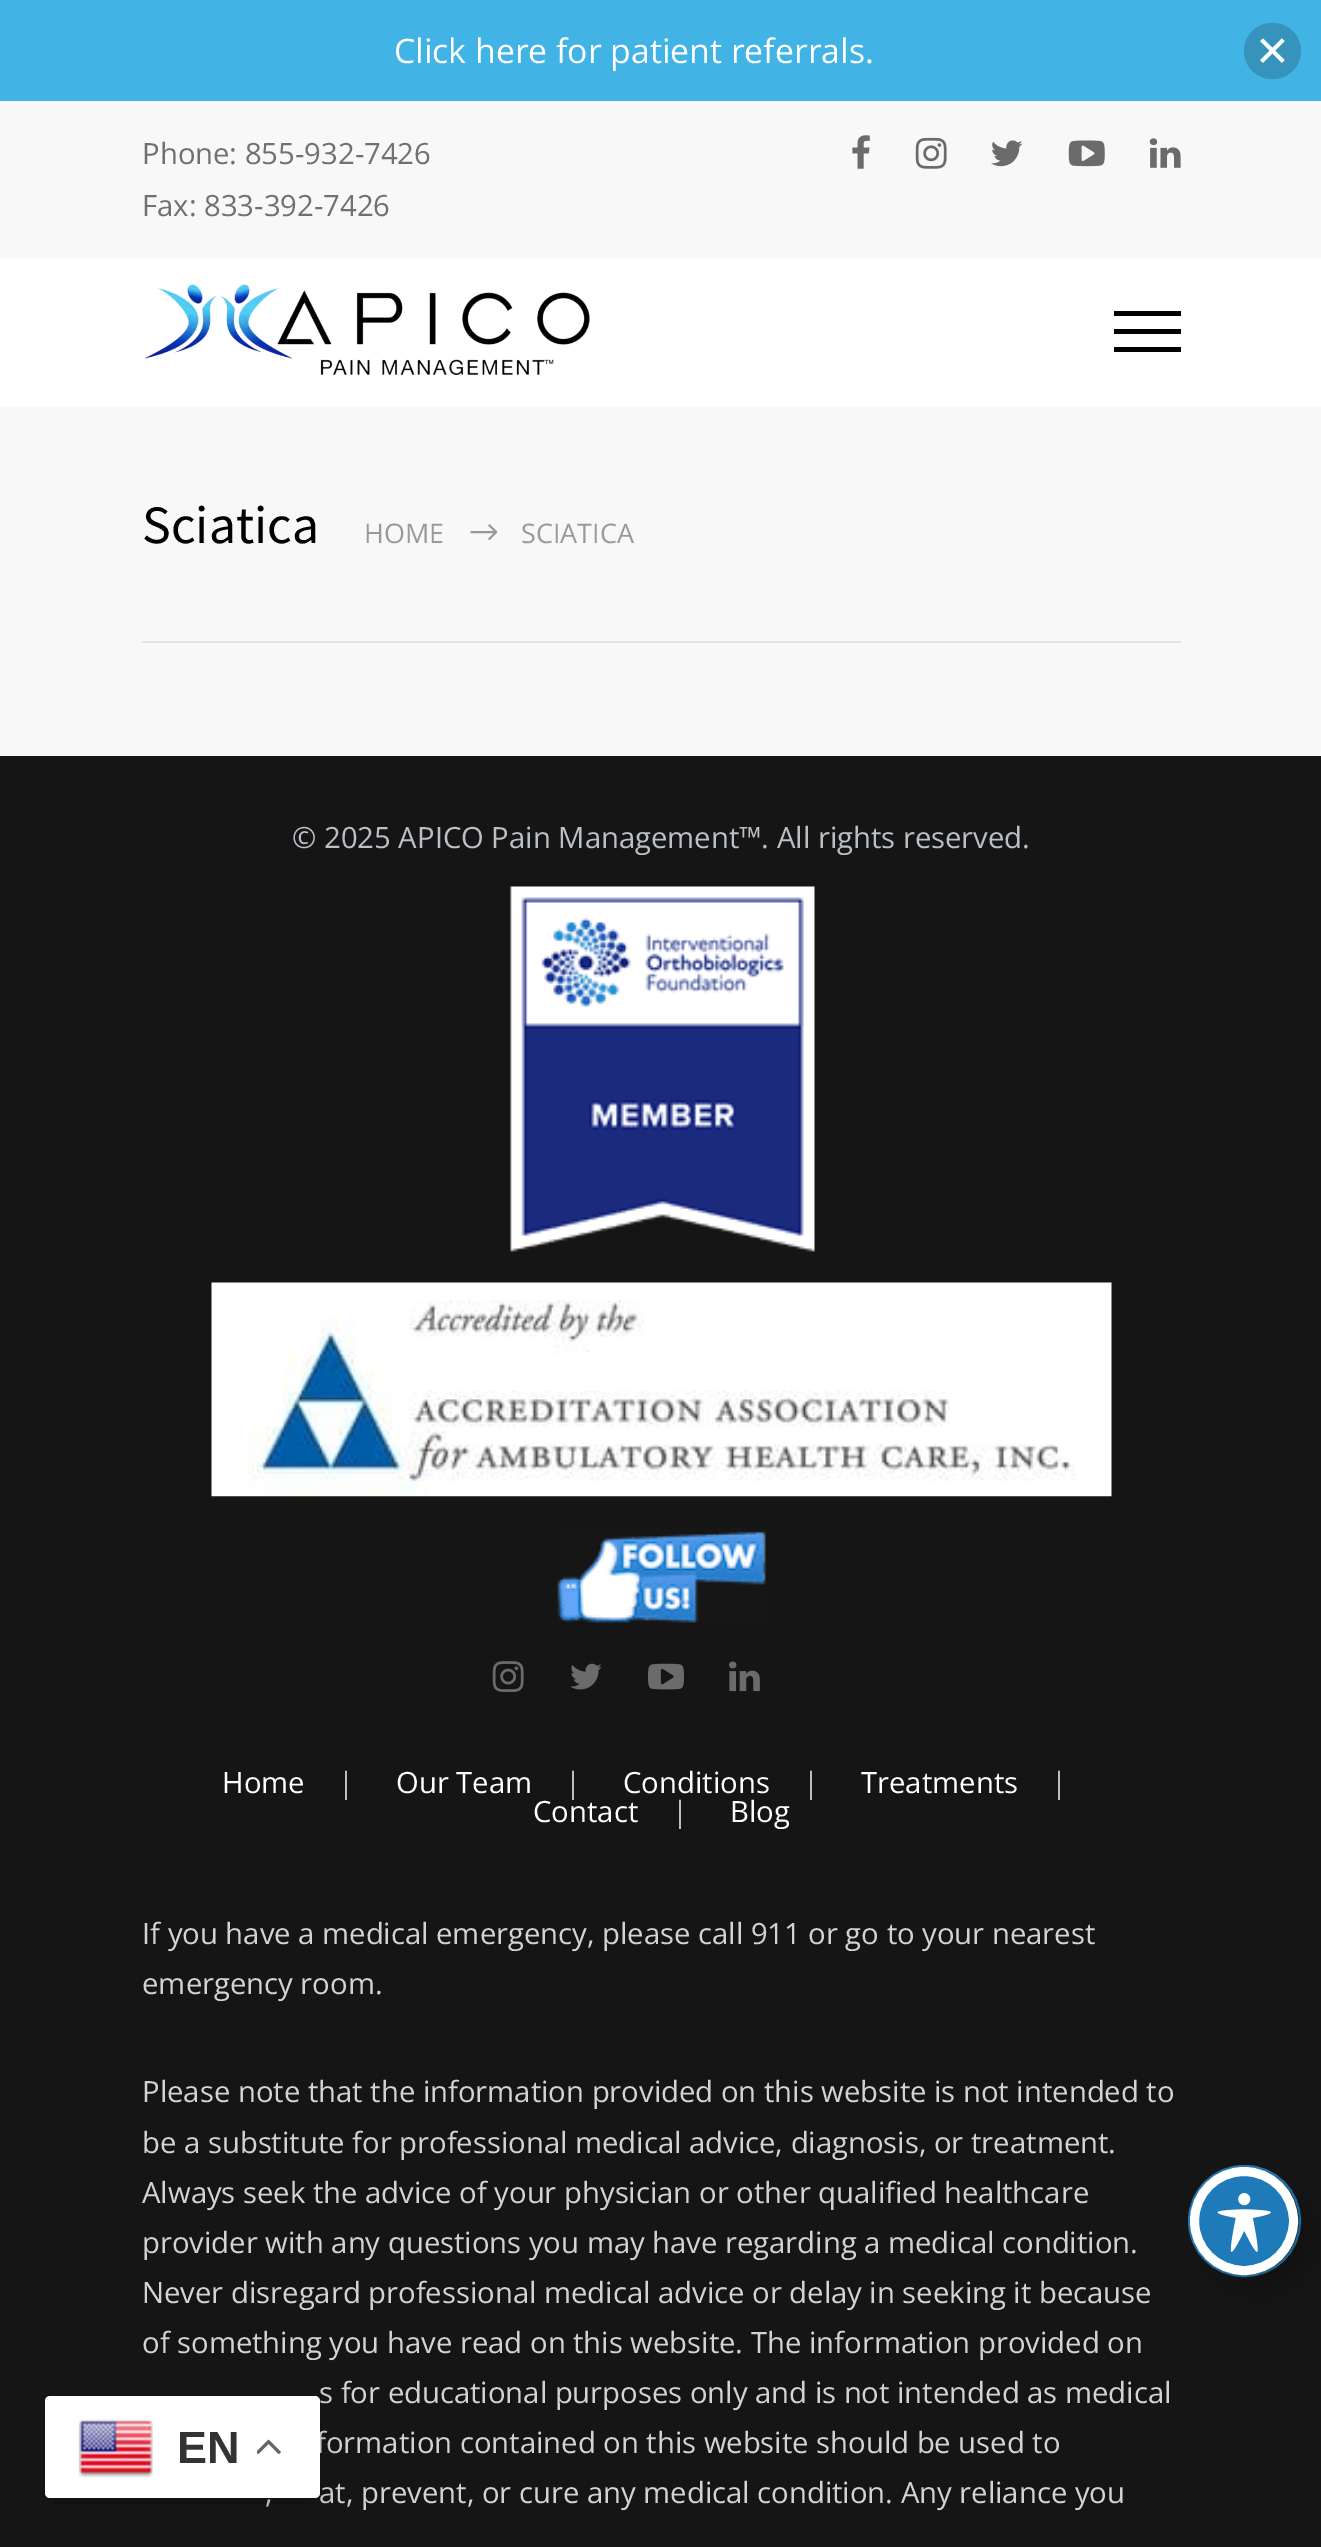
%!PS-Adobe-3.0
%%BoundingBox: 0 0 1321 2547
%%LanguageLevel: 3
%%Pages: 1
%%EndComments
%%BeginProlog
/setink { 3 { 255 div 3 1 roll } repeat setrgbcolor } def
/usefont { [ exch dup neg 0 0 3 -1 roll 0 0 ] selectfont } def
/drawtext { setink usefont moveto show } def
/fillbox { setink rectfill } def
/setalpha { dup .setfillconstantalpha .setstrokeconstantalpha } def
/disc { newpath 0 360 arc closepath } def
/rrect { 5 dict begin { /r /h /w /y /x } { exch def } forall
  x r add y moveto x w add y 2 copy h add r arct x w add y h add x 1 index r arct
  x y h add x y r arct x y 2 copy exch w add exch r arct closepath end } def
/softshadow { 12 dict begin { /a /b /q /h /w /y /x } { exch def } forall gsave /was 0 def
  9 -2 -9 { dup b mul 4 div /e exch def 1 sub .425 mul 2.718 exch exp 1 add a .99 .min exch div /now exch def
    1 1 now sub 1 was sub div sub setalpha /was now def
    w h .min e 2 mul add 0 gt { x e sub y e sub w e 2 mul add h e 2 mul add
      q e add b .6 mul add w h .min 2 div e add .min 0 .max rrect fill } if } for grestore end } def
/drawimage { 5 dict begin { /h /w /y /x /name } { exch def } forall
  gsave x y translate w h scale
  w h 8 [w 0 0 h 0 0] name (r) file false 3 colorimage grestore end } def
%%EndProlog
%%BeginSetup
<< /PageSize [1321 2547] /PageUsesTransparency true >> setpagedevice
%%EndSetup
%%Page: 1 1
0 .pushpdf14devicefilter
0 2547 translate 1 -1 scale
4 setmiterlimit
0 0 1321 2547 248 248 248 fillbox
0 0 1321 101 66 179 229 fillbox
(Click here for patient referrals.) 394 63 /OpenSans-Regular 33.75 255 255 255 drawtext
54 147 188 setink
1244 23 57 56 28 rrect fill
(assets/img1.rgb) 1260 38 25 25 drawimage
(Phone: 855-932-7426) 142 164 /OpenSans-Regular 29.25 112 112 112 drawtext
(Fax: 833-392-7426) 142 216 /OpenSans-Regular 29.25 112 112 112 drawtext
(assets/img2.rgb) 852 135 18 34 drawimage
(assets/img3.rgb) 915 137 32 32 drawimage
(assets/img4.rgb) 991 140 32 27 drawimage
(assets/img5.rgb) 1068 140 37 27 drawimage
(assets/img6.rgb) 1149 138 32 30 drawimage
0 259 1321 148 255 255 255 fillbox
(assets/img7.rgb) 144 284 446 91 drawimage
1114 311 67 5 0 0 0 fillbox
1114 329 67 5 0 0 0 fillbox
1114 347 67 5 0 0 0 fillbox
142 641 1039 2 229 229 229 fillbox
(Sciatica) 142 543 /SourceSansPro-Regular 54 0 0 0 drawtext
(HOME) 364 543 /OpenSans-Regular 27 153 153 153 drawtext
(assets/img8.rgb) 470 524 28 16 drawimage
(SCIATICA) 521 543 /OpenSans-Regular 27 153 153 153 drawtext
0 756 1321 1791 21 21 21 fillbox
(© 2025 APICO Pain Management™. All rights reserved.) 292 848 /OpenSans-Regular 29.25 186 192 197 drawtext
(assets/img9.rgb) 510 886 305 366 drawimage
(assets/img10.rgb) 211 1282 901 215 drawimage
(assets/img11.rgb) 557 1528 209 95 drawimage
(assets/img12.rgb) 492 1661 32 31 drawimage
(assets/img13.rgb) 570 1663 32 27 drawimage
(assets/img14.rgb) 648 1663 36 27 drawimage
(assets/img15.rgb) 729 1661 31 31 drawimage
(Home) 222 1793 /OpenSans-Regular 29.25 255 255 255 drawtext
(|) 338 1793 /OpenSans-Regular 29.25 186 192 197 drawtext
(Our Team) 396 1793 /OpenSans-Regular 29.25 255 255 255 drawtext
(|) 565 1793 /OpenSans-Regular 29.25 186 192 197 drawtext
(Conditions) 623 1793 /OpenSans-Regular 29.25 255 255 255 drawtext
(|) 803 1793 /OpenSans-Regular 29.25 186 192 197 drawtext
(Treatments) 861 1793 /OpenSans-Regular 29.25 255 255 255 drawtext
(|) 1051 1793 /OpenSans-Regular 29.25 186 192 197 drawtext
(Contact) 533 1822 /OpenSans-Regular 29.25 255 255 255 drawtext
(|) 672 1822 /OpenSans-Regular 29.25 186 192 197 drawtext
(Blog) 730 1822 /OpenSans-Regular 29.25 255 255 255 drawtext
(If you have a medical emergency, please call 911 or go to your nearest) 142 1944 /OpenSans-Regular 29.25 211 211 211 drawtext
(emergency room.) 142 1994 /OpenSans-Regular 29.25 211 211 211 drawtext
(Please note that the information provided on this website is not intended to) 142 2102 /OpenSans-Regular 29.25 211 211 211 drawtext
(be a substitute for professional medical advice, diagnosis, or treatment.) 142 2153 /OpenSans-Regular 29.25 211 211 211 drawtext
(Always seek the advice of your physician or other qualified healthcare) 142 2203 /OpenSans-Regular 29.25 211 211 211 drawtext
(provider with any questions you may have regarding a medical condition.) 142 2253 /OpenSans-Regular 29.25 211 211 211 drawtext
(Never disregard professional medical advice or delay in seeking it because) 142 2303 /OpenSans-Regular 29.25 211 211 211 drawtext
(of something you have read on this website. The information provided on) 142 2353 /OpenSans-Regular 29.25 211 211 211 drawtext
(s for educational purposes only and is not intended as medical) 319 2403 /OpenSans-Regular 29.25 211 211 211 drawtext
(formation contained on this website should be used to) 316 2453 /OpenSans-Regular 29.25 211 211 211 drawtext
(,) 265 2503 /OpenSans-Regular 29.25 211 211 211 drawtext
(at, prevent, or cure any medical condition. Any reliance you) 319 2503 /OpenSans-Regular 29.25 211 211 211 drawtext
30 122 185 setink
2 setlinewidth
1189 2166 111 110 55 rrect stroke
0 0 0 setink
1204 2185 108 108 54 18 0.2 softshadow
30 122 185 setink
1244 2221 49.5 disc gsave fill grestore
255 255 255 setink
9 setlinewidth
stroke
(assets/img16.rgb) 1217 2193 54 59 drawimage
0 0 0 setink
45 2408 275 101 5 17 0.15 softshadow
255 255 255 setink
45 2396 275 102 5 rrect fill
(assets/img17.rgb) 78 2419 75 59 drawimage
(EN) 177 2463 /LiberationSans-Bold 45 51 51 51 drawtext
(assets/img18.rgb) 257 2439 24 15 drawimage
.poppdf14devicefilter showpage
%%EOF
